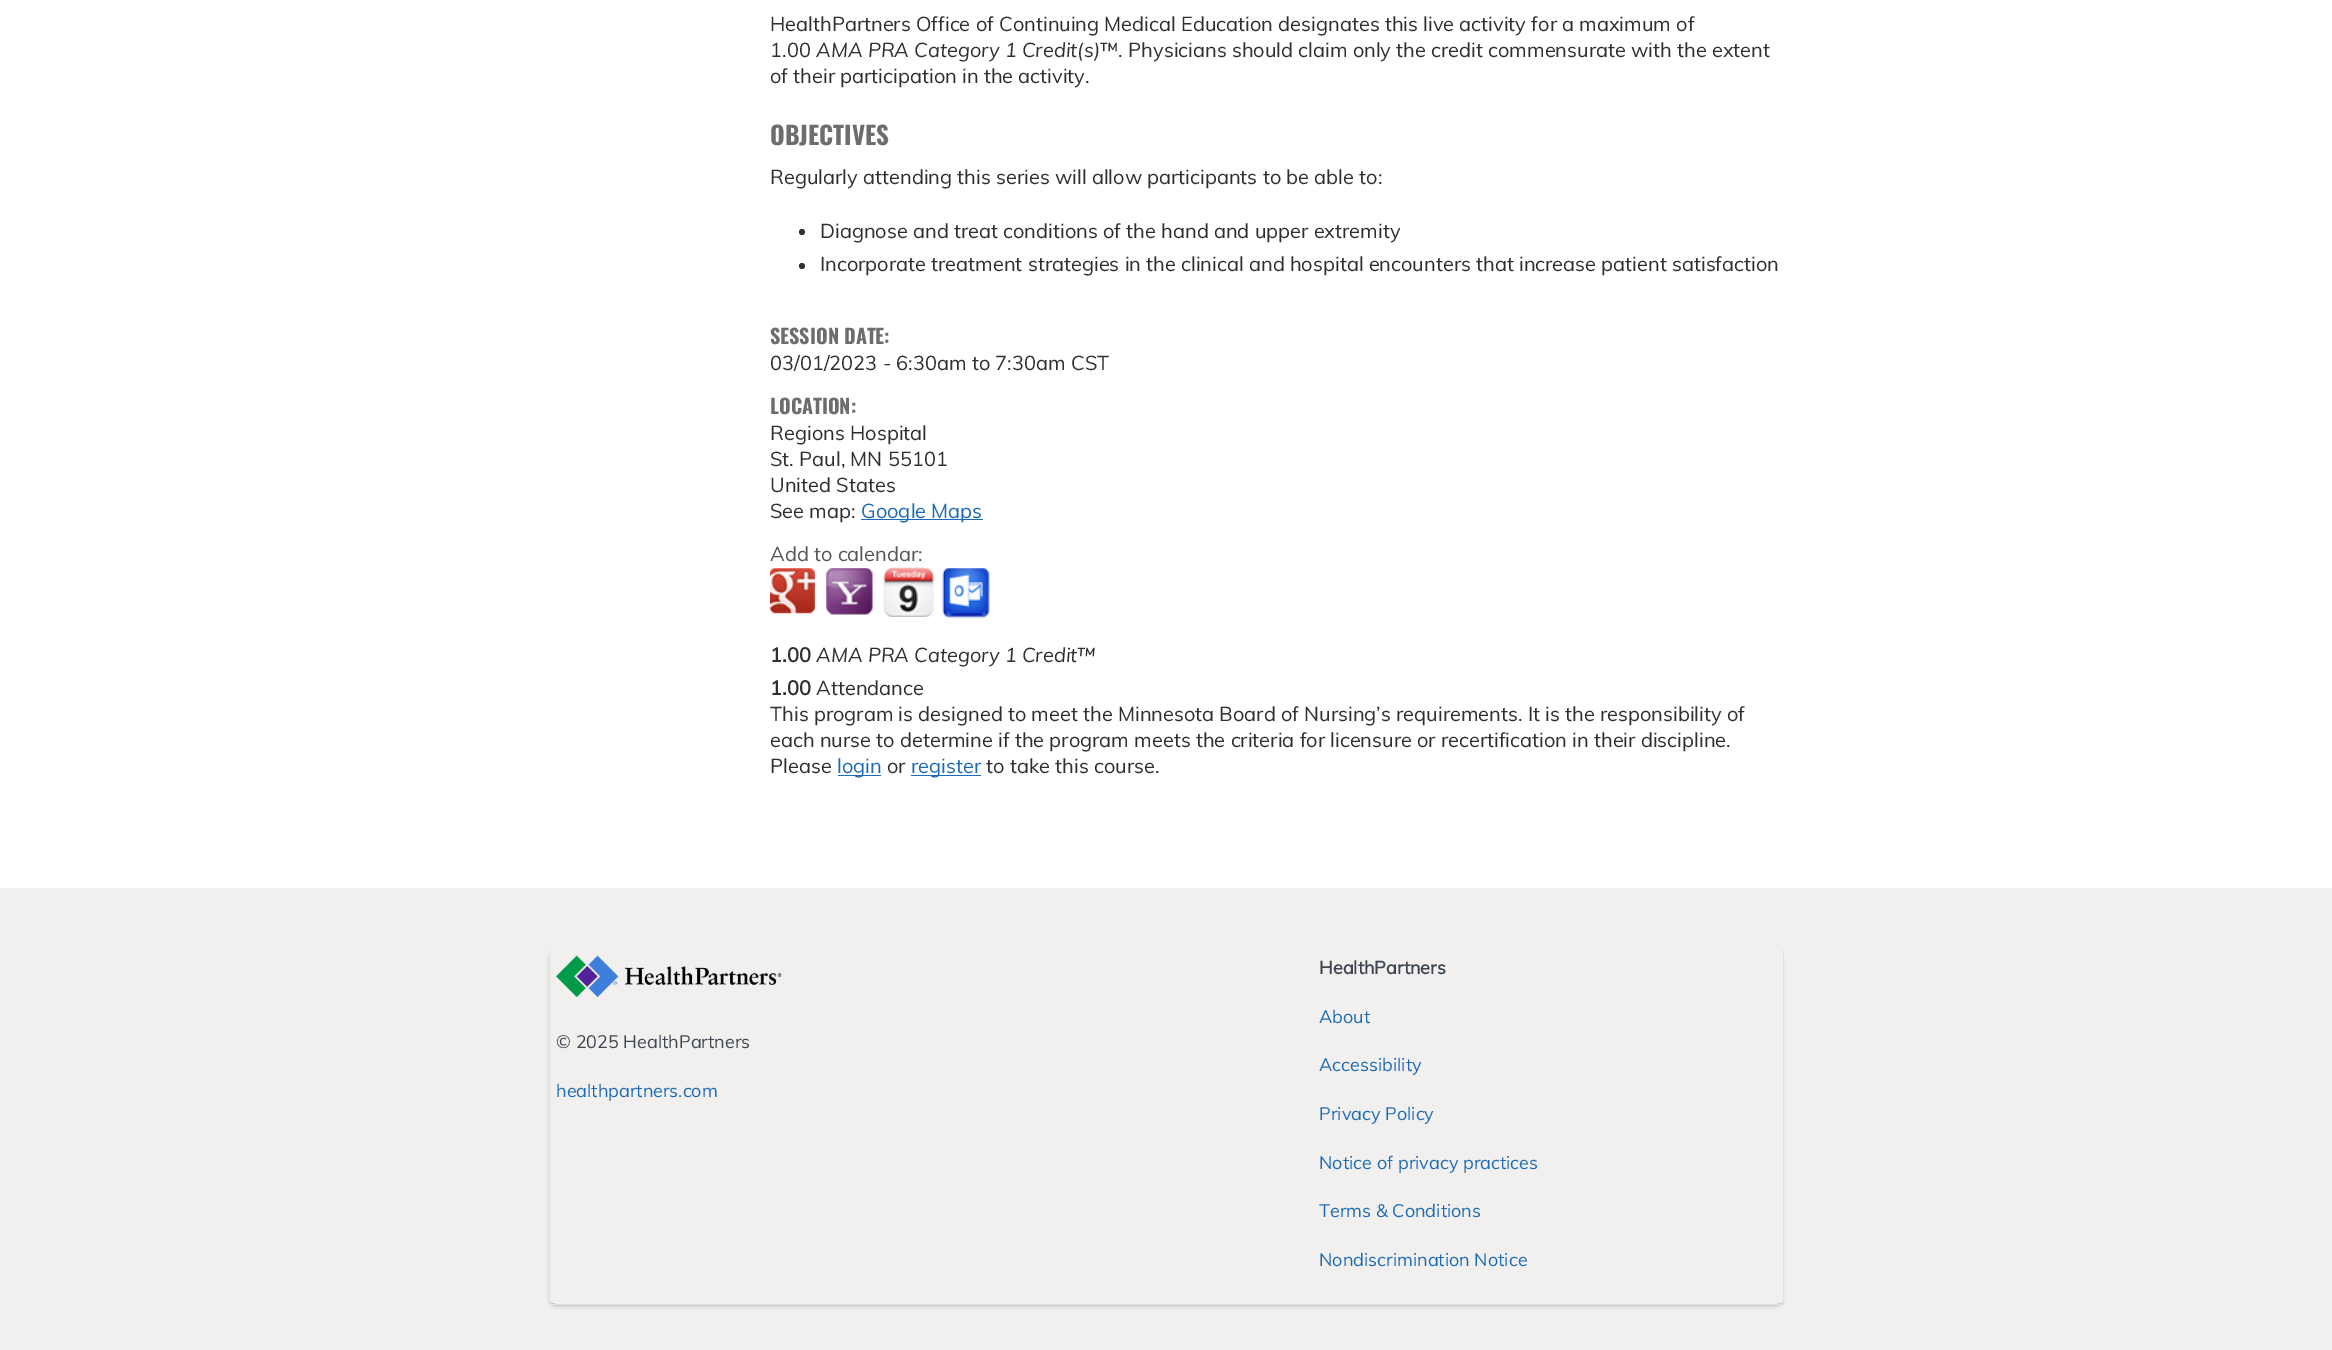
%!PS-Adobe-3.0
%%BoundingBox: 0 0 2332 1350
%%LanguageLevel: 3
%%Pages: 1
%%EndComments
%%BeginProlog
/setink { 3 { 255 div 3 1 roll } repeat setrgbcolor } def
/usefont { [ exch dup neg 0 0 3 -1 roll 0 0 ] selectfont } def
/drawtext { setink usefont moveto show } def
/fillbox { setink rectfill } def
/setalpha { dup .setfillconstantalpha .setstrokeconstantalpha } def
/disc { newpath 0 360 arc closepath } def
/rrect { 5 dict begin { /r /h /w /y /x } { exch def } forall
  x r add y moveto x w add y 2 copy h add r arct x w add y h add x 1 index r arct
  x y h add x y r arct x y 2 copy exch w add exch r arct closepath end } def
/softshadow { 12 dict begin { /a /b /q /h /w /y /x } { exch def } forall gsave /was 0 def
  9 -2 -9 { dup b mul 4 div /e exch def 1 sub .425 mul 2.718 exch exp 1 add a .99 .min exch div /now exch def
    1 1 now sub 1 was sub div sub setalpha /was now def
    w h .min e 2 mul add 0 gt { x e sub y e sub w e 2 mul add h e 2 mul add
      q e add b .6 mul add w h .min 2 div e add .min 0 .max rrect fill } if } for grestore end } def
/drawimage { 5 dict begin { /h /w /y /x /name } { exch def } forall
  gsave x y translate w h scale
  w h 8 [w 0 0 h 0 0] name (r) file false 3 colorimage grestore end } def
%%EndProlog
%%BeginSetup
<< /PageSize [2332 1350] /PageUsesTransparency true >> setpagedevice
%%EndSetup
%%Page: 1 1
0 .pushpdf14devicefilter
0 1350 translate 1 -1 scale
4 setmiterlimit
0 0 2332 1350 255 255 255 fillbox
(HealthPartners Office of Continuing Medical Education designates this live activity for a maximum of) 770 31 /Muli-Regular 20 47 47 47 drawtext
(1.00) 770 57 /Muli-Regular 20 47 47 47 drawtext
(AMA PRA Category 1 Credit\(s\)) 816 57 /Muli-Italic 20 47 47 47 drawtext
(™. Physicians should claim only the credit commensurate with the extent) 1100 57 /Muli-Regular 20 47 47 47 drawtext
(of their participation in the activity.) 770 83 /Muli-Regular 20 47 47 47 drawtext
(OBJECTIVES) 770 145 /Oswald-Bold 25 109 109 109 drawtext
(Regularly attending this series will allow participants to be able to:) 770 184 /Muli-Regular 20 47 47 47 drawtext
802 232 3 disc fill
(Diagnose and treat conditions of the hand and upper extremity) 820 238 /Muli-Regular 20 47 47 47 drawtext
802 266 3 disc fill
(Incorporate treatment strategies in the clinical and hospital encounters that increase patient satisfaction) 820 271 /Muli-Regular 20 47 47 47 drawtext
(SESSION DATE:) 770 344 /Oswald-Bold 20 109 109 109 drawtext
(03/01/2023 - 6:30am to 7:30am CST) 770 370 /Muli-Regular 20 47 47 47 drawtext
(LOCATION:) 770 414 /Oswald-Bold 20 109 109 109 drawtext
(Regions Hospital) 770 440 /Muli-Regular 20 47 47 47 drawtext
(St. Paul, MN 55101) 770 466 /Muli-Regular 20 47 47 47 drawtext
(United States) 770 492 /Muli-Regular 20 47 47 47 drawtext
(See map:) 770 518 /Muli-Regular 20 47 47 47 drawtext
861 519 122 1 29 106 183 fillbox
(Google Maps) 861 518 /Muli-Regular 20 29 106 183 drawtext
(Add to calendar:) 770 561 /Muli-Regular 20 87 87 87 drawtext
(assets/img1.rgb) 770 568 45 46 drawimage
(assets/img2.rgb) 826 568 47 47 drawimage
(assets/img3.rgb) 883 567 51 50 drawimage
(assets/img4.rgb) 942 568 48 51 drawimage
(1.00) 770 662 /Muli-Bold 20 47 47 47 drawtext
(AMA PRA Category 1 Credit™) 816 662 /Muli-Italic 20 47 47 47 drawtext
(1.00) 770 695 /Muli-Bold 20 47 47 47 drawtext
(Attendance) 816 695 /Muli-Regular 20 47 47 47 drawtext
(This program is designed to meet the Minnesota Board of Nursing’s requirements. It is the responsibility of) 770 721 /Muli-Regular 20 47 47 47 drawtext
(each nurse to determine if the program meets the criteria for licensure or recertification in their discipline.) 770 747 /Muli-Regular 20 47 47 47 drawtext
(Please) 770 773 /Muli-Regular 20 47 47 47 drawtext
838 775 43 1 29 106 183 fillbox
(login) 837 773 /Muli-Regular 20 29 106 183 drawtext
(or) 887 773 /Muli-Regular 20 47 47 47 drawtext
911 775 70 1 29 106 183 fillbox
(register) 911 773 /Muli-Regular 20 29 106 183 drawtext
(to take this course.) 986 773 /Muli-Regular 20 47 47 47 drawtext
0 888 2332 462 241 240 238 fillbox
gsave
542 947 moveto 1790 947 lineto 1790 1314 lineto 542 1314 lineto closepath 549 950 moveto 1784 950 lineto 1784 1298 lineto 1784 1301.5 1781.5 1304 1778 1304 curveto 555 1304 lineto 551.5 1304 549 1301.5 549 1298 curveto closepath eoclip newpath
0 0 0 setink
551 956 1230 349 4 2.5 0.3 softshadow
grestore
1783 950 1 355 225 225 225 fillbox
549 1304 1235 1 225 225 225 fillbox
549 950 1 355 225 225 225 fillbox
(assets/img5.rgb) 556 955 226 42 drawimage
(© 2025 HealthPartners) 556 1048 /Muli-Regular 18 62 71 81 drawtext
(healthpartners.com) 556 1097 /Muli-Regular 18 29 106 183 drawtext
(HealthPartners) 1319 974 /Muli-Bold 18 62 71 81 drawtext
(About) 1319 1023 /Muli-Regular 18 29 106 183 drawtext
(Accessibility) 1319 1071 /Muli-Regular 18 29 106 183 drawtext
(Privacy Policy) 1319 1120 /Muli-Regular 18 29 106 183 drawtext
(Notice of privacy practices) 1319 1169 /Muli-Regular 18 29 106 183 drawtext
(Terms & Conditions) 1319 1217 /Muli-Regular 18 29 106 183 drawtext
(Nondiscrimination Notice) 1319 1266 /Muli-Regular 18 29 106 183 drawtext
.poppdf14devicefilter showpage
%%EOF
